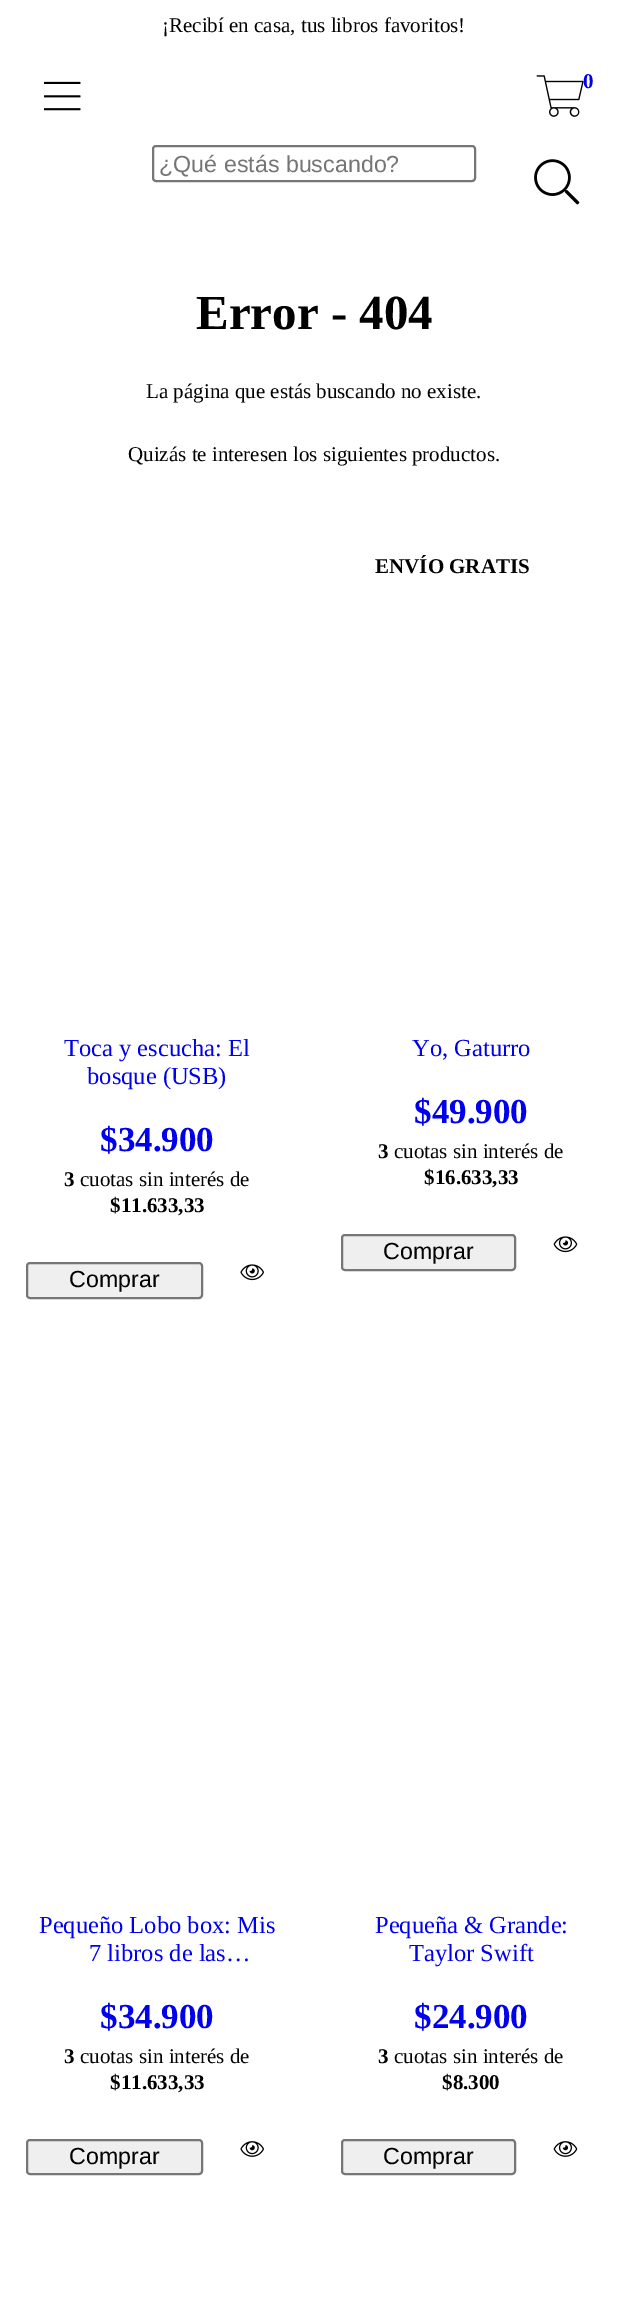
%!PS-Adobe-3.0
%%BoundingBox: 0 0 627 2306
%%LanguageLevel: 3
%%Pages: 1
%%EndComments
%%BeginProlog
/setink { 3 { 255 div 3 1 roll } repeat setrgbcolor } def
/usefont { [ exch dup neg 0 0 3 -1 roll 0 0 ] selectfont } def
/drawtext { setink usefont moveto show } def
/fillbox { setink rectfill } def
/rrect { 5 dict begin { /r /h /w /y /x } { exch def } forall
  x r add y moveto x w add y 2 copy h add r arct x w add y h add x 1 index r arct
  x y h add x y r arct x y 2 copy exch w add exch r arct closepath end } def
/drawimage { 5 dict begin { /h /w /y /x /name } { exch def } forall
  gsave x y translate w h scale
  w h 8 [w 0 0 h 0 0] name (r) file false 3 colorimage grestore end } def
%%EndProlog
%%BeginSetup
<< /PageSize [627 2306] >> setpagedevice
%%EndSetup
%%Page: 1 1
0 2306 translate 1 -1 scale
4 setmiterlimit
0 0 627 2306 255 255 255 fillbox
(¡Recibí en casa, tus libros favoritos!) 162 32 /LiberationSerif-Regular 21 0 0 0 drawtext
(assets/img1.rgb) 44 81 37 30 drawimage
(assets/img2.rgb) 536 75 48 42 drawimage
(0) 583 88 /LiberationSerif-Bold 21 0 0 238 drawtext
118 118 118 setink
2 setlinewidth
153 146 322 35 3 rrect stroke
(¿Qué estás buscando?) 159 172 /LiberationSans-Regular 23.25 117 117 117 drawtext
(assets/img3.rgb) 534 159 46 46 drawimage
(Error - 404) 196 329 /LiberationSerif-Bold 49 0 0 0 drawtext
(La página que estás buscando no existe.) 146 398 /LiberationSerif-Regular 21 0 0 0 drawtext
(Quizás te interesen los siguientes productos.) 128 461 /LiberationSerif-Regular 21 0 0 0 drawtext
(Toca y escucha: El) 64 1056 /LiberationSerif-Regular 24.5 0 0 238 drawtext
(bosque \(USB\)) 87 1084 /LiberationSerif-Regular 24.5 0 0 238 drawtext
($34.900) 100 1151 /LiberationSerif-Bold 35 0 0 238 drawtext
(3) 64 1186 /LiberationSerif-Bold 21 0 0 0 drawtext
(cuotas sin interés de) 80 1186 /LiberationSerif-Regular 21 0 0 0 drawtext
($11.633,33) 110 1212 /LiberationSerif-Bold 21 0 0 0 drawtext
239 239 239 setink
27 1263 175 35 3 rrect gsave fill grestore
118 118 118 setink
stroke
(Comprar) 69 1287 /LiberationSans-Regular 23.25 0 0 0 drawtext
(assets/img4.rgb) 240 1264 24 17 drawimage
(ENVÍO GRATIS) 375 573 /LiberationSerif-Bold 21 0 0 0 drawtext
(Yo, Gaturro) 412 1056 /LiberationSerif-Regular 24.5 0 0 238 drawtext
($49.900) 414 1123 /LiberationSerif-Bold 35 0 0 238 drawtext
(3) 378 1158 /LiberationSerif-Bold 21 0 0 0 drawtext
(cuotas sin interés de) 394 1158 /LiberationSerif-Regular 21 0 0 0 drawtext
($16.633,33) 424 1184 /LiberationSerif-Bold 21 0 0 0 drawtext
239 239 239 setink
342 1235 173 35 3 rrect gsave fill grestore
118 118 118 setink
stroke
(Comprar) 383 1259 /LiberationSans-Regular 23.25 0 0 0 drawtext
(assets/img5.rgb) 553 1236 25 17 drawimage
(Pequeño Lobo box: Mis) 39 1933 /LiberationSerif-Regular 24.5 0 0 238 drawtext
(7 libros de las…) 89 1961 /LiberationSerif-Regular 24.5 0 0 238 drawtext
($34.900) 100 2028 /LiberationSerif-Bold 35 0 0 238 drawtext
(3) 64 2063 /LiberationSerif-Bold 21 0 0 0 drawtext
(cuotas sin interés de) 80 2063 /LiberationSerif-Regular 21 0 0 0 drawtext
($11.633,33) 110 2089 /LiberationSerif-Bold 21 0 0 0 drawtext
239 239 239 setink
27 2140 175 34 3 rrect gsave fill grestore
118 118 118 setink
stroke
(Comprar) 69 2164 /LiberationSans-Regular 23.25 0 0 0 drawtext
(assets/img6.rgb) 240 2141 24 16 drawimage
(Pequeña & Grande:) 375 1933 /LiberationSerif-Regular 24.5 0 0 238 drawtext
(Taylor Swift) 409 1961 /LiberationSerif-Regular 24.5 0 0 238 drawtext
($24.900) 414 2028 /LiberationSerif-Bold 35 0 0 238 drawtext
(3) 378 2063 /LiberationSerif-Bold 21 0 0 0 drawtext
(cuotas sin interés de) 394 2063 /LiberationSerif-Regular 21 0 0 0 drawtext
($8.300) 442 2089 /LiberationSerif-Bold 21 0 0 0 drawtext
239 239 239 setink
342 2140 173 34 3 rrect gsave fill grestore
118 118 118 setink
stroke
(Comprar) 383 2164 /LiberationSans-Regular 23.25 0 0 0 drawtext
(assets/img7.rgb) 553 2141 25 16 drawimage
showpage
%%EOF
